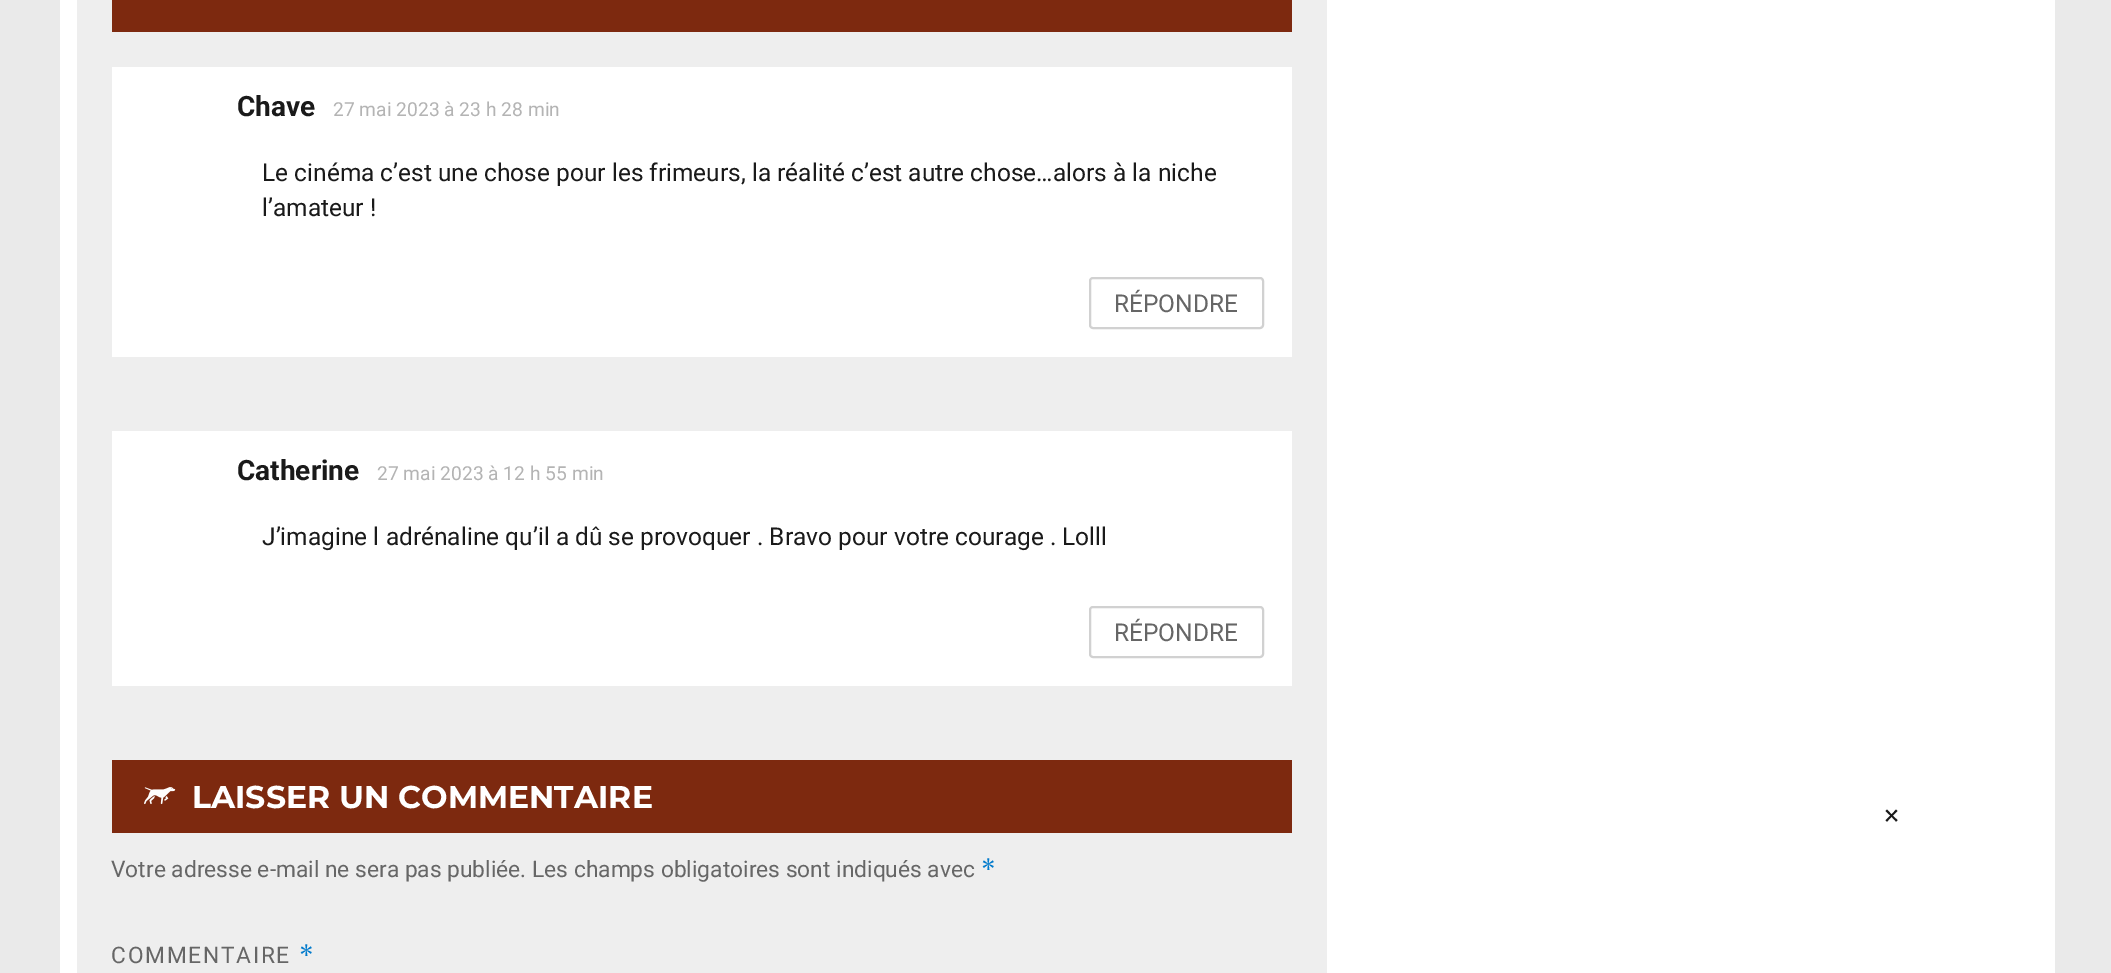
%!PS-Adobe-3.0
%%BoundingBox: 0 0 2111 973
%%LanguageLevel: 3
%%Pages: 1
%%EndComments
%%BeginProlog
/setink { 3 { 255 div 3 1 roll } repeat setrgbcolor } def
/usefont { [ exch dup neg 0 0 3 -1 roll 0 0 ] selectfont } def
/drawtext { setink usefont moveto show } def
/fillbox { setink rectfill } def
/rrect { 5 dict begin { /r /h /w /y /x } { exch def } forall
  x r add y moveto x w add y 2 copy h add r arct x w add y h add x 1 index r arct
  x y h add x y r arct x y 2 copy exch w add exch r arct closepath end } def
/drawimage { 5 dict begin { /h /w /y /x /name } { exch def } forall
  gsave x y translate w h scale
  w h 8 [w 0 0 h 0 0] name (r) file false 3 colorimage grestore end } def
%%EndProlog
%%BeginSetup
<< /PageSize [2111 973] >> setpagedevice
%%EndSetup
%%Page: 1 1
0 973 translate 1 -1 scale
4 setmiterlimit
0 0 2111 973 234 234 234 fillbox
60 0 1995 973 255 255 255 fillbox
77 0 1250 973 238 238 238 fillbox
112 0 1180 32 125 41 15 fillbox
112 67 1180 290 255 255 255 fillbox
(Chave) 237 116 /Roboto-Bold 28 26 26 26 drawtext
(27 mai 2023 à 23 h 28 min) 333 116 /Roboto-Regular 19.25 180 180 180 drawtext
(Le cinéma c’est une chose pour les frimeurs, la réalité c’est autre chose…alors à la niche) 262 181 /Roboto-Regular 24.5 26 26 26 drawtext
(l’amateur !) 262 216 /Roboto-Regular 24.5 26 26 26 drawtext
209 209 209 setink
2 setlinewidth
1090 278 173 50 3 rrect stroke
(RÉPONDRE) 1114 312 /Roboto-Regular 24.5 102 102 102 drawtext
112 431 1180 255 255 255 255 fillbox
(Catherine) 237 480 /Roboto-Bold 28 26 26 26 drawtext
(27 mai 2023 à 12 h 55 min) 377 480 /Roboto-Regular 19.25 180 180 180 drawtext
(J’imagine l adrénaline qu’il a dû se provoquer . Bravo pour votre courage . Lolll) 262 545 /Roboto-Regular 24.5 26 26 26 drawtext
209 209 209 setink
1090 607 173 50 3 rrect stroke
(RÉPONDRE) 1114 641 /Roboto-Regular 24.5 102 102 102 drawtext
112 760 1180 73 125 41 15 fillbox
(assets/img1.rgb) 144 787 32 18 drawimage
(LAISSER UN COMMENTAIRE) 192 808 /Montserrat-Thin 31.5 255 255 255 drawtext
(Votre adresse e-mail ne sera pas publiée. Les champs obligatoires sont indiqués avec) 111 877 /Roboto-Regular 22.75 102 102 102 drawtext
(*) 981 877 /Merriweather-Regular 22.75 0 122 204 drawtext
/Roboto-Regular 22.75 usefont
102 102 102 setink
111 963 moveto 1.75 0 (COMMENTAIRE) ashow
/Merriweather-Regular 22.75 usefont
0 122 204 setink
299 963 moveto 1.75 0 (*) ashow
(×) 1883 824 /Merriweather-Regular 28 26 26 26 drawtext
showpage
%%EOF
